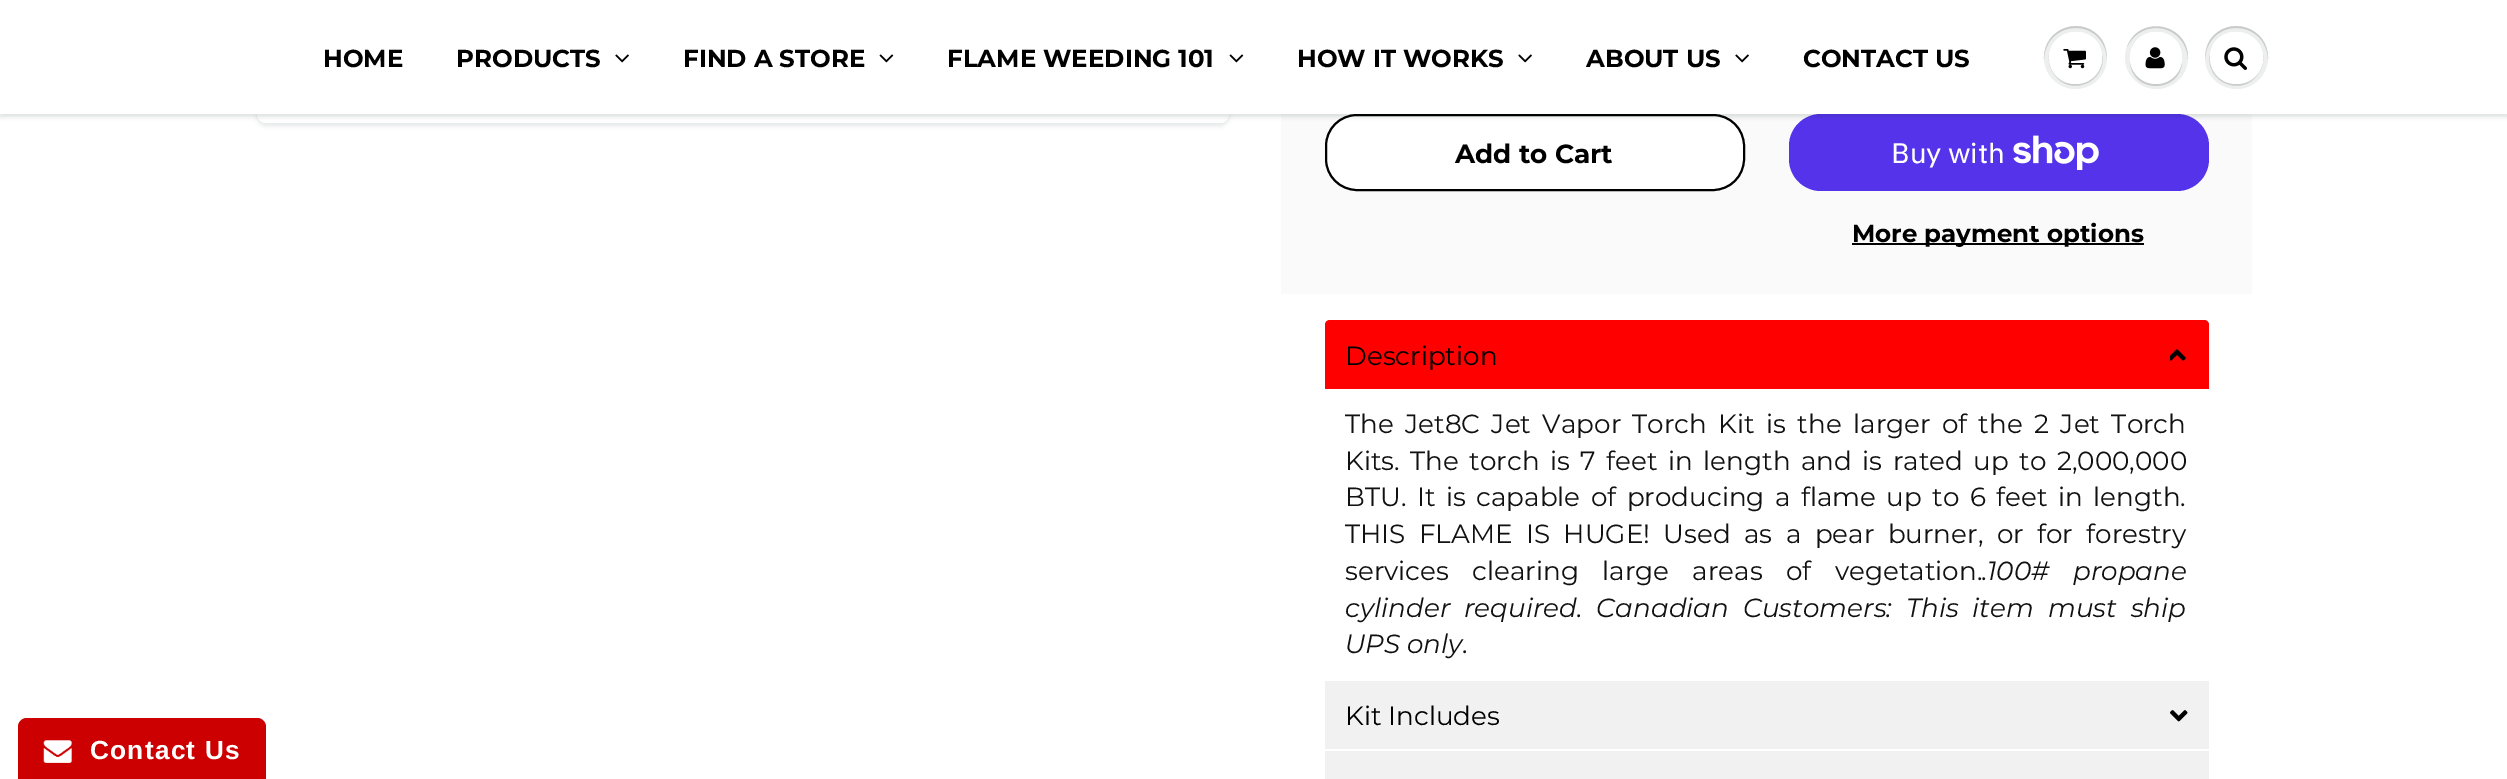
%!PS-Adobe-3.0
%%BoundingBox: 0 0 2507 779
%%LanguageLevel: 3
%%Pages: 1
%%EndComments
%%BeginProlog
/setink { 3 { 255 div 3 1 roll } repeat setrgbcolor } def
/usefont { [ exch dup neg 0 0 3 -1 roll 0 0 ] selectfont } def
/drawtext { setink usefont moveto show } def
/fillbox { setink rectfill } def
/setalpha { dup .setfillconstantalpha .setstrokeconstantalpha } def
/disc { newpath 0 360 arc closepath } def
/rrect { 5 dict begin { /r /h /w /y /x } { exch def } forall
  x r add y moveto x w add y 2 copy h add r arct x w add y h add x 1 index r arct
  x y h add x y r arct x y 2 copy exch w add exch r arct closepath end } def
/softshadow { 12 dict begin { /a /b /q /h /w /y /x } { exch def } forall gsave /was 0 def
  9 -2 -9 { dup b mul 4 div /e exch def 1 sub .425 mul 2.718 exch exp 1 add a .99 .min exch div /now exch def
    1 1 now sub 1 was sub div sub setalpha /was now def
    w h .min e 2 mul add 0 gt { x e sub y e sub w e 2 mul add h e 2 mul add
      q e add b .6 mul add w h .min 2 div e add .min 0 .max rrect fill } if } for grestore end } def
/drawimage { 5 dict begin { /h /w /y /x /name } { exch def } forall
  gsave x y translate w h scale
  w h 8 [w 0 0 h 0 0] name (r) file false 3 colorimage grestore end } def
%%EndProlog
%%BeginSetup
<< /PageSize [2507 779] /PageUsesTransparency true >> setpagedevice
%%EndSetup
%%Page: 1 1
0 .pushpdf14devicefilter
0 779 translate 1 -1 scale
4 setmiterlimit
0 0 2507 779 255 255 255 fillbox
11 25 28 setink
257 -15 972 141 9 2 0.1 softshadow
255 255 255 setink
257 -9 972 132 9 rrect fill
1281 114 971 180 250 250 250 fillbox
255 255 255 setink
1326 115 418 75 31 rrect gsave fill grestore
0 0 0 setink
2 setlinewidth
stroke
84 51 235 setink
1789 114 420 77 32 rrect fill
11 25 28 setink
0 4 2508 113 0 2 0.12 softshadow
0 0 2507 114 255 255 255 fillbox
(HOME) 323 67 /Montserrat-Bold 24.5 0 0 0 drawtext
(PRODUCTS) 456 67 /Montserrat-Bold 24.5 0 0 0 drawtext
(assets/img1.rgb) 615 54 14 9 drawimage
(FIND A STORE) 683 67 /Montserrat-Bold 24.5 0 0 0 drawtext
(assets/img2.rgb) 879 54 15 9 drawimage
(FLAME WEEDING 101) 947 67 /Montserrat-Bold 24.5 0 0 0 drawtext
(assets/img2.rgb) 1229 54 15 9 drawimage
(HOW IT WORKS) 1297 67 /Montserrat-Bold 24.5 0 0 0 drawtext
(assets/img1.rgb) 1518 54 14 9 drawimage
(ABOUT US) 1586 67 /Montserrat-Bold 24.5 0 0 0 drawtext
(assets/img1.rgb) 1735 54 14 9 drawimage
(CONTACT US) 1803 67 /Montserrat-Bold 24.5 0 0 0 drawtext
237 239 239 setink
2075.5 57.5 31.5 disc fill
201 203 203 setink
2076 28 moveto 2093 28 2106 41 2107 59 curveto 2107 52 2105 45 2102 40 curveto 2084 14 2043 27 2044 59 curveto 2045 41 2058 28 2076 28 curveto closepath fill
2049 55 moveto 2048 62 2050 69 2054 74 curveto 2070 98 2107 82 2102 55 curveto 2105 82 2069 95 2054 72 curveto 2050 67 2049 61 2049 55 curveto closepath fill
255 255 255 setink
2049 32 53 52 26 rrect fill
2076 33 moveto 2090 33 2101 44 2102 59 curveto 2102 54 2101 48 2098 43 curveto 2083 22 2048 33 2049 59 curveto 2050 44 2061 33 2076 33 curveto closepath fill
(assets/img3.rgb) 2063 49 23 20 drawimage
237 239 239 setink
2156.5 57.5 31.5 disc fill
201 203 203 setink
2156 28 moveto 2173 28 2187 41 2188 59 curveto 2189 23 2139 14 2127 47 curveto 2132 36 2143 28 2156 28 curveto closepath 2182 62 moveto 2177 91 2135 91 2130 62 curveto 2132 94 2180 94 2182 62 curveto closepath fill
255 255 255 setink
2156 58 26 disc fill
2156 33 moveto 2170 33 2181 44 2182 59 curveto 2182 54 2181 48 2178 43 curveto 2163 22 2129 33 2130 59 curveto 2131 44 2142 33 2156 33 curveto closepath fill
(assets/img4.rgb) 2145 47 20 22 drawimage
237 239 239 setink
2236.5 57.5 31.5 disc fill
201 203 203 setink
2236 28 moveto 2254 28 2267 41 2268 59 curveto 2269 27 2228 14 2210 40 curveto 2207 45 2205 52 2205 59 curveto 2206 41 2219 28 2236 28 curveto closepath fill
2210 55 moveto 2205 82 2242 98 2258 74 curveto 2262 69 2264 62 2263 55 curveto 2266 82 2230 95 2215 72 curveto 2211 67 2210 61 2210 55 curveto closepath fill
255 255 255 setink
2210 32 53 52 26 rrect fill
2236 33 moveto 2251 33 2262 44 2263 59 curveto 2264 33 2229 22 2214 43 curveto 2211 48 2210 54 2210 59 curveto 2211 44 2222 33 2236 33 curveto closepath fill
(assets/img5.rgb) 2224 47 23 23 drawimage
(Add to Cart) 1455 163 /Montserrat-Bold 26.25 0 0 0 drawtext
(Buy with) 1891 163 /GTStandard-Regular 28 255 255 255 drawtext
(assets/img6.rgb) 2013 135 86 35 drawimage
1852 243 292 2 0 0 0 fillbox
(More payment options) 1852 242 /Montserrat-Bold 24.5 0 0 0 drawtext
255 0 0 setink
1330 320 moveto 2204 320 lineto 2207 320 2209 322 2209 325 curveto 2209 389 lineto 1325 389 lineto 1325 325 lineto 1325 322 1327 320 1330 320 curveto closepath fill
(Description) 1345 365 /Montserrat-Regular 26.25 0 0 0 drawtext
(assets/img7.rgb) 2170 349 16 12 drawimage
17 17 17 setink
1345 433 moveto 4.5 0 32 (The Jet8C Jet Vapor Torch Kit is the larger of the 2 Jet Torch) widthshow
1345 470 moveto 3.6 0 32 (Kits. The torch is 7 feet in length and is rated up to 2,000,000) widthshow
1345 506 moveto 3.6 0 32 (BTU. It is capable of producing a flame up to 6 feet in length.) widthshow
1345 543 moveto 6.5 0 32 (THIS FLAME IS HUGE! Used as a pear burner, or for forestry) widthshow
1345 580 moveto 16.5 0 32 (services clearing large areas of vegetation.) widthshow
(.) 1981 580 /Montserrat-Regular 26.25 17 17 17 drawtext
/Montserrat-Italic 26.25 usefont
1987 580 moveto 16.5 0 32 (100# propane) widthshow
1345 617 moveto 7 0 32 (cylinder required. Canadian Customers: This item must ship) widthshow
(UPS only.) 1345 653 /Montserrat-Italic 26.25 17 17 17 drawtext
1325 681 884 68 241 241 241 fillbox
(Kit Includes) 1345 725 /Montserrat-Regular 26.25 0 0 0 drawtext
(assets/img8.rgb) 2170 710 18 12 drawimage
1325 751 884 28 241 241 241 fillbox
204 0 0 setink
27 718 moveto 257 718 lineto 262 718 266 722 266 727 curveto 266 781 lineto 18 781 lineto 18 727 lineto 18 722 22 718 27 718 curveto closepath fill
(assets/img9.rgb) 43 740 29 23 drawimage
/LiberationSans-Bold 26.25 usefont
255 255 255 setink
90 759 moveto 1.25 0 (Contact Us) ashow
.poppdf14devicefilter showpage
%%EOF
